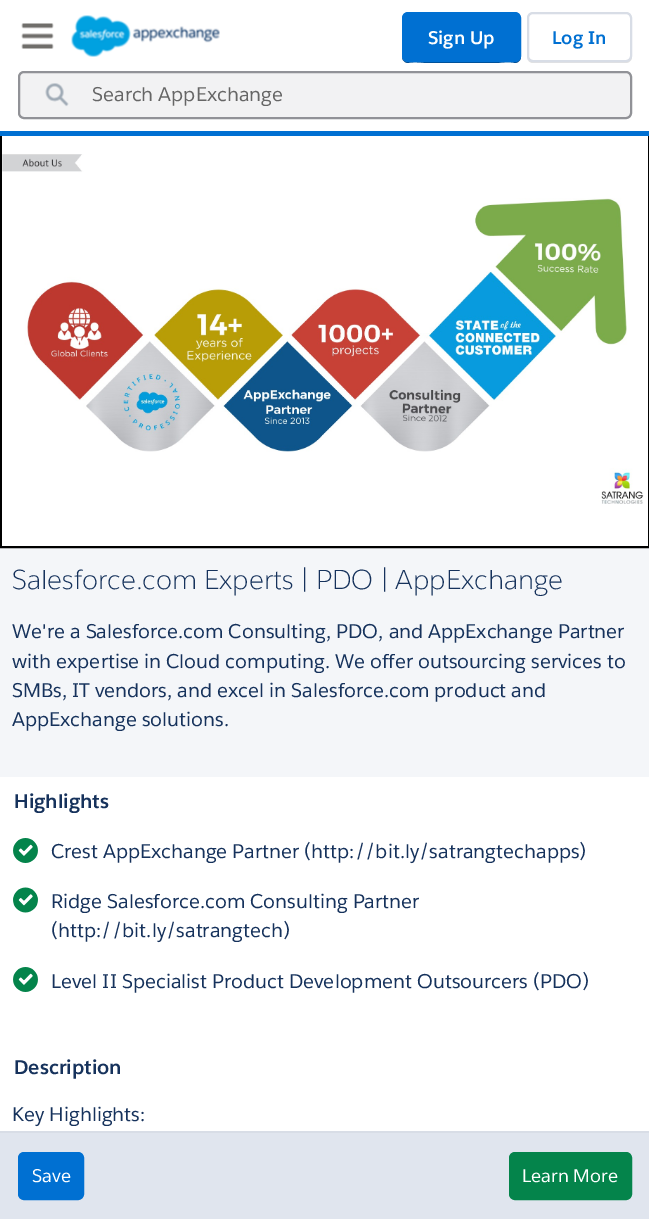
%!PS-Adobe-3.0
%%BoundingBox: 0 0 649 1219
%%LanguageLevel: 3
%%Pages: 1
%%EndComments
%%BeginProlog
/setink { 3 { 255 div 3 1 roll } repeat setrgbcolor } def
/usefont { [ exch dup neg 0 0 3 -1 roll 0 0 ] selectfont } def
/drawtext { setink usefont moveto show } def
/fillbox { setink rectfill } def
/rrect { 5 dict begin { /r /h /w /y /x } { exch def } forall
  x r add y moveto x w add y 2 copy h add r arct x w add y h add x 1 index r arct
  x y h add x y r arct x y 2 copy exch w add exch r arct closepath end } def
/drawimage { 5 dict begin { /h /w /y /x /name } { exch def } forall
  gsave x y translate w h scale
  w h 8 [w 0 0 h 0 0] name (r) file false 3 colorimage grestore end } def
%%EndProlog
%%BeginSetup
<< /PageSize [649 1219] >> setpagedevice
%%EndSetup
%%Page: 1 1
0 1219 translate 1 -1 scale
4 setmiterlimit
0 0 649 1219 244 246 249 fillbox
0 0 0 setink
2 setlinewidth
1 114 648 433 rectstroke
0 0 649 131 255 255 255 fillbox
(assets/img1.rgb) 21 23 33 26 drawimage
(assets/img2.rgb) 71 15 149 42 drawimage
0 71 134 setink
402 56 moveto 402 57 lineto 402 60 405 63 408 63 curveto 515 63 lineto 518 63 521 60 521 57 curveto 521 20 lineto 520 18 lineto 520 57 lineto 519 66 499 62 497 62 curveto 426 62 lineto 424 62 402 66 402 56 curveto closepath fill
0 112 210 setink
403 13 117 48 5 rrect gsave fill grestore
stroke
(Sign Up) 428 44 /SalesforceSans-Bold 18 255 255 255 drawtext
226 226 226 setink
527 58 moveto 528 61 530 63 533 63 curveto 626 63 lineto 629 63 632 60 632 57 curveto 632 20 lineto 631 18 lineto 631 57 lineto 630 60 lineto 629 61 627 61 626 62 curveto 531 61 lineto 529 61 528 60 527 58 curveto closepath fill
255 255 255 setink
528 13 103 48 5 rrect gsave fill grestore
216 221 230 setink
stroke
(Log In) 552 44 /SalesforceSans-Bold 18 0 112 210 drawtext
0 131 649 5 0 112 210 fillbox
242 242 243 setink
19 72 612 46 5 rrect gsave fill grestore
145 146 151 setink
stroke
(assets/img3.rgb) 45 83 24 24 drawimage
(Search AppExchange) 92 101 /SalesforceSans-Regular 19.5 102 102 102 drawtext
2 136 646 410 255 255 255 fillbox
(assets/img4.rgb) 2 154 642 350 drawimage
(Salesforce.com Experts | PDO | AppExchange) 12 589 /SalesforceSans-Light 27 22 50 92 drawtext
(We're a Salesforce.com Consulting, PDO, and AppExchange Partner) 12 638 /SalesforceSans-Regular 19.5 22 50 92 drawtext
(with expertise in Cloud computing. We offer outsourcing services to) 12 668 /SalesforceSans-Regular 19.5 22 50 92 drawtext
(SMBs, IT vendors, and excel in Salesforce.com product and) 12 697 /SalesforceSans-Regular 19.5 22 50 92 drawtext
(AppExchange solutions.) 12 726 /SalesforceSans-Regular 19.5 22 50 92 drawtext
0 777 649 354 255 255 255 fillbox
(Highlights) 14 808 /SalesforceSans-Bold 19.5 22 50 92 drawtext
(assets/img5.rgb) 13 838 25 25 drawimage
(Crest AppExchange Partner \(http://bit.ly/satrangtechapps\)) 51 858 /SalesforceSans-Regular 19.5 22 50 92 drawtext
(assets/img6.rgb) 13 887 25 26 drawimage
(Ridge Salesforce.com Consulting Partner) 51 908 /SalesforceSans-Regular 19.5 22 50 92 drawtext
(\(http://bit.ly/satrangtech\)) 51 937 /SalesforceSans-Regular 19.5 22 50 92 drawtext
(assets/img7.rgb) 13 967 25 25 drawimage
(Level II Specialist Product Development Outsourcers \(PDO\)) 51 988 /SalesforceSans-Regular 19.5 22 50 92 drawtext
(Description) 14 1074 /SalesforceSans-Bold 19.5 22 50 92 drawtext
(Key Highlights:) 12 1121 /SalesforceSans-Regular 19.5 22 50 92 drawtext
0 1133 649 86 224 229 238 fillbox
0 1131 649 2 216 221 230 fillbox
0 112 210 setink
19 1153 64 46 5 rrect gsave fill grestore
stroke
(Save) 32 1182 /SalesforceSans-Regular 18 255 255 255 drawtext
4 132 75 setink
510 1153 121 46 5 rrect gsave fill grestore
stroke
(Learn More) 522 1182 /SalesforceSans-Regular 18 255 255 255 drawtext
showpage
%%EOF
